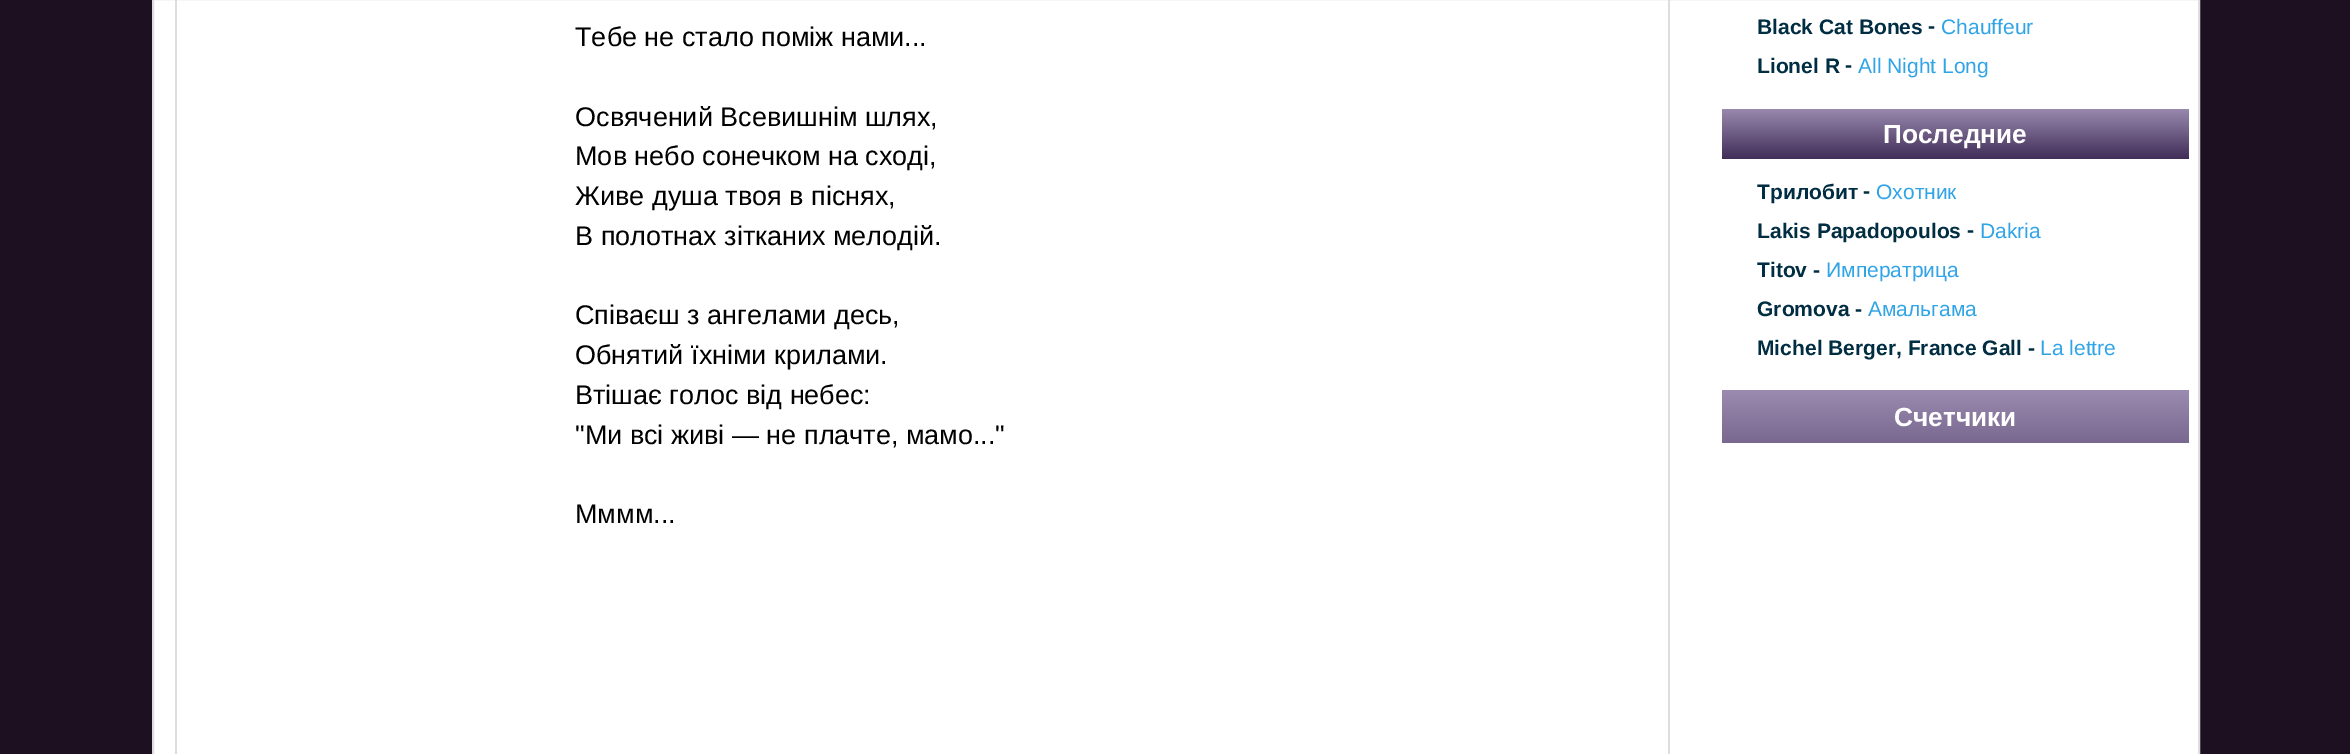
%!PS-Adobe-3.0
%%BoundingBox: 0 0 2350 754
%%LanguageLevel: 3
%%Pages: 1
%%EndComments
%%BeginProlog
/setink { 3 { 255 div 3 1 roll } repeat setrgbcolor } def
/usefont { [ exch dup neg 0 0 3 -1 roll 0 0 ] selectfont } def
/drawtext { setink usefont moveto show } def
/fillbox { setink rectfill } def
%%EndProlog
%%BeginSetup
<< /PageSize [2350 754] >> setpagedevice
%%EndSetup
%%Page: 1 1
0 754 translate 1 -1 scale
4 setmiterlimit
0 0 2350 754 29 16 33 fillbox
255 255 255 setink
153 -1 moveto 2199 -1 lineto 2199 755 lineto 153 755 lineto closepath gsave fill grestore
221 221 221 setink
2 setlinewidth
stroke
1668 0 2 754 221 221 221 fillbox
175 0 2 754 221 221 221 fillbox
(Тебе не стало поміж нами...) 575 46 /LiberationSans-Regular 27 0 0 0 drawtext
(Освячений Всевишнім шлях,) 575 126 /LiberationSans-Regular 27 0 0 0 drawtext
(Мов небо сонечком на сході,) 575 165 /LiberationSans-Regular 27 0 0 0 drawtext
(Живе душа твоя в піснях,) 575 205 /LiberationSans-Regular 27 0 0 0 drawtext
(В полотнах зітканих мелодій.) 575 245 /LiberationSans-Regular 27 0 0 0 drawtext
(Співаєш з ангелами десь,) 575 324 /LiberationSans-Regular 27 0 0 0 drawtext
(Обнятий їхніми крилами.) 575 364 /LiberationSans-Regular 27 0 0 0 drawtext
(Втішає голос від небес:) 575 404 /LiberationSans-Regular 27 0 0 0 drawtext
("Ми всі живі — не плачте, мамо...") 575 444 /LiberationSans-Regular 27 0 0 0 drawtext
(Мммм...) 575 523 /LiberationSans-Regular 27 0 0 0 drawtext
(Black Cat Bones) 1757 34 /LiberationSans-Bold 21 0 45 66 drawtext
(-) 1928 33 /LiberationSans-Bold 21 0 45 66 drawtext
(Chauffeur) 1941 34 /LiberationSans-Regular 21 47 164 231 drawtext
(Lionel R) 1757 73 /LiberationSans-Bold 21 0 45 66 drawtext
(-) 1845 72 /LiberationSans-Bold 21 0 45 66 drawtext
(All Night Long) 1858 73 /LiberationSans-Regular 21 47 164 231 drawtext
gsave 1722 109 moveto 2189 109 lineto 2189 159 lineto 1722 159 lineto closepath clip newpath
<< /ShadingType 2 /ColorSpace /DeviceRGB /Coords [1956 108 1956 159] /Extend [true true] /Function << /FunctionType 2 /Domain [0 1] /C0 [0.608 0.545 0.69] /C1 [0.251 0.176 0.345] /N 1 >> >> shfill grestore
(Последние) 1883 143 /LiberationSans-Bold 26.25 255 255 255 drawtext
(Трилобит) 1757 199 /LiberationSans-Bold 21 0 45 66 drawtext
(-) 1863 198 /LiberationSans-Bold 21 0 45 66 drawtext
(Охотник) 1876 199 /LiberationSans-Regular 21 47 164 231 drawtext
(Lakis Papadopoulos) 1757 238 /LiberationSans-Bold 21 0 45 66 drawtext
(-) 1967 237 /LiberationSans-Bold 21 0 45 66 drawtext
(Dakria) 1980 238 /LiberationSans-Regular 21 47 164 231 drawtext
(Titov -) 1757 277 /LiberationSans-Bold 21 0 45 66 drawtext
(Императрица) 1826 277 /LiberationSans-Regular 21 47 164 231 drawtext
(Gromova -) 1757 316 /LiberationSans-Bold 21 0 45 66 drawtext
(Амальгама) 1868 316 /LiberationSans-Regular 21 47 164 231 drawtext
(Michel Berger, France Gall -) 1757 355 /LiberationSans-Bold 21 0 45 66 drawtext
(La lettre) 2040 355 /LiberationSans-Regular 21 47 164 231 drawtext
gsave 1722 390 moveto 2189 390 lineto 2189 443 lineto 1722 443 lineto closepath clip newpath
<< /ShadingType 2 /ColorSpace /DeviceRGB /Coords [1956 390 1956 532] /Extend [true true] /Function << /FunctionType 2 /Domain [0 1] /C0 [0.608 0.545 0.69] /C1 [0.251 0.176 0.345] /N 1 >> >> shfill grestore
(Счетчики) 1894 426 /LiberationSans-Bold 26.25 255 255 255 drawtext
showpage
%%EOF
